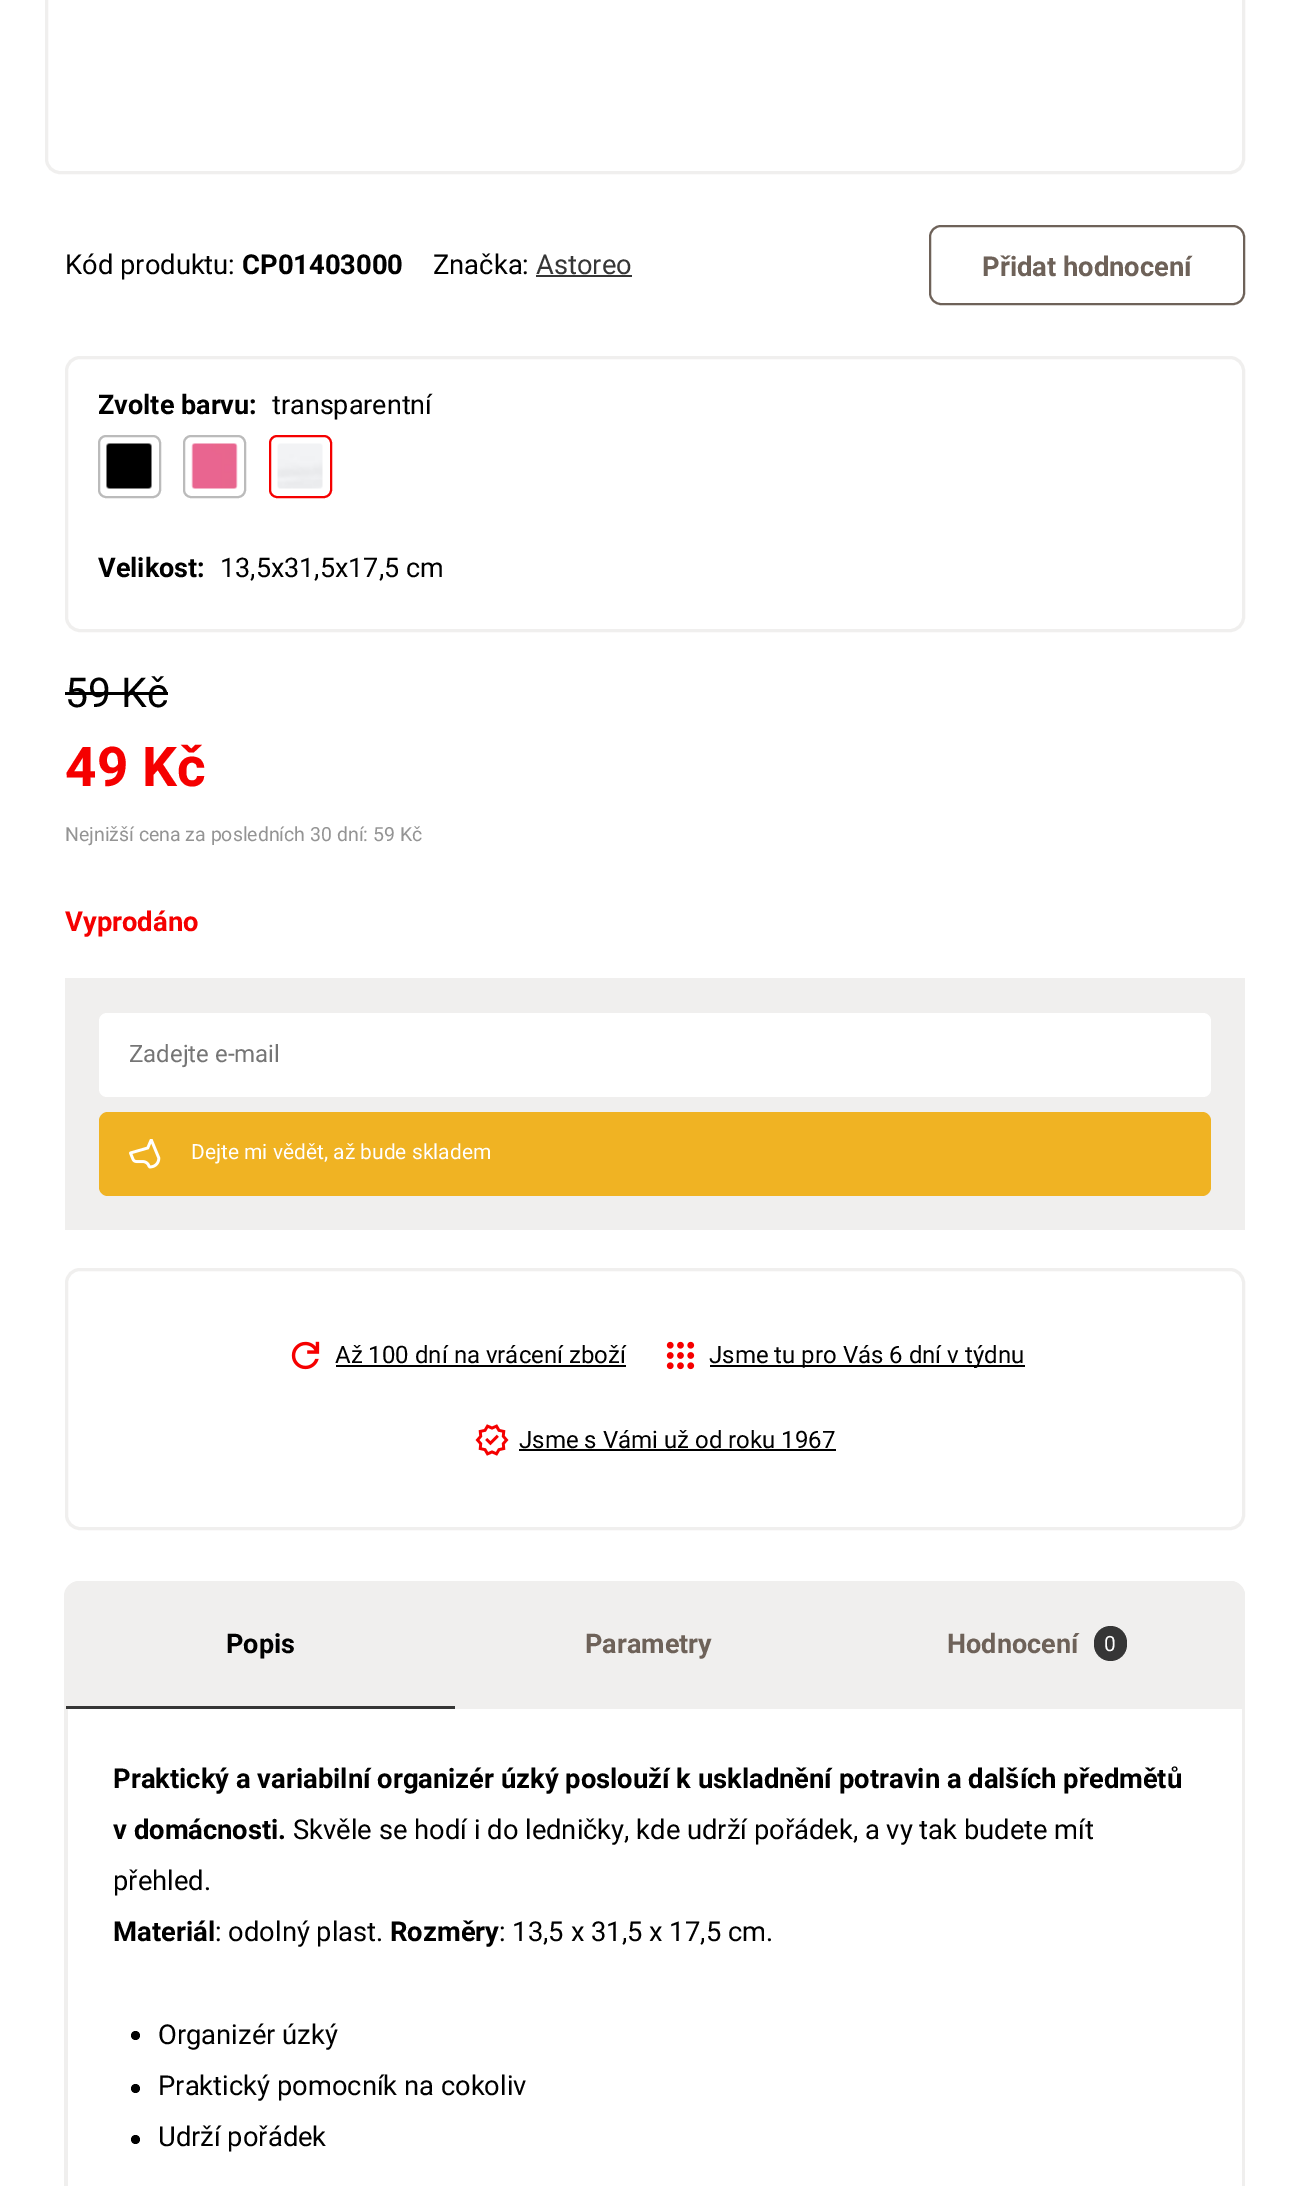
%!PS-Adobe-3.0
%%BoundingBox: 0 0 1309 2186
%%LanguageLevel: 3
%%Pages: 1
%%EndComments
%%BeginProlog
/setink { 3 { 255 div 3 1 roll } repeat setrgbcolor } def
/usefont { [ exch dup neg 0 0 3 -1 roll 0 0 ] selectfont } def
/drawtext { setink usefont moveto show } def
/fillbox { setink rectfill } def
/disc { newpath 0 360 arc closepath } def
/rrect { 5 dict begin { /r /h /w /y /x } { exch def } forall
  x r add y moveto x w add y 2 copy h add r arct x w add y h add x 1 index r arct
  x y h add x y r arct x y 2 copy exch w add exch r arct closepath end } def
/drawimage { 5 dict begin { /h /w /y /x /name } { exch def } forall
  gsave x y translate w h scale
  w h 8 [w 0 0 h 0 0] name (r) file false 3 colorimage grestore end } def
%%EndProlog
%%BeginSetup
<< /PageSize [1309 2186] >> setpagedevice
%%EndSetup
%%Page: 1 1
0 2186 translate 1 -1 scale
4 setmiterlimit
0 0 1309 2186 255 255 255 fillbox
240 239 238 setink
3 setlinewidth
46.5 -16.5 1197 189 13.5 rrect stroke
(Kód produktu:) 65 274 /Roboto-Regular 27.35 0 0 0 drawtext
(CP01403000) 242 274 /Roboto-Bold 27.35 0 0 0 drawtext
(Značka:) 433 274 /Roboto-Regular 27.35 0 0 0 drawtext
(Astoreo) 536 274 /Roboto-Regular 27.35 54 54 54 drawtext
536 275 96 2 54 54 54 fillbox
110 98 89 setink
2 setlinewidth
930 226 314 78 11 rrect stroke
(Přidat hodnocení) 982 276 /Roboto-Bold 27.35 110 98 89 drawtext
240 239 238 setink
3 setlinewidth
66.5 357.5 1177 273 13.5 rrect stroke
(Zvolte barvu:) 98 414 /Roboto-Bold 27 0 0 0 drawtext
(transparentní) 272 414 /Roboto-Regular 27 0 0 0 drawtext
187 187 187 setink
2 setlinewidth
99 436 61 61 7 rrect stroke
(assets/img1.rgb) 106 443 46 46 drawimage
184 436 61 61 7 rrect stroke
(assets/img2.rgb) 191 443 47 46 drawimage
245 0 0 setink
270 436 61 61 7 rrect stroke
(assets/img3.rgb) 277 443 46 46 drawimage
(Velikost:) 98 577 /Roboto-Bold 27 0 0 0 drawtext
(13,5x31,5x17,5 cm) 220 577 /Roboto-Regular 27 0 0 0 drawtext
(59 Kč) 65 707 /Roboto-Regular 41 0 0 0 drawtext
65 692 103 3 0 0 0 fillbox
(49 Kč) 65 786 /Roboto-Bold 55 245 0 0 drawtext
(Nejnižší cena za posledních 30 dní: 59 Kč) 65 841 /Roboto-Regular 19.5 148 148 148 drawtext
(Vyprodáno) 65 931 /Roboto-Bold 27.35 245 0 0 drawtext
65 978 1180 252 240 239 238 fillbox
255 255 255 setink
99 1013 1112 84 8 rrect fill
(Zadejte e-mail) 129 1062 /Roboto-Regular 24 117 117 117 drawtext
240 179 35 setink
99 1112 1112 84 9 rrect fill
(assets/img4.rgb) 129 1139 32 30 drawimage
(Dejte mi vědět, až bude skladem) 191 1159 /Roboto-Regular 21 255 255 255 drawtext
240 239 238 setink
3 setlinewidth
66.5 1269.5 1177 259 13.5 rrect stroke
(assets/img5.rgb) 291 1341 29 29 drawimage
(Až 100 dní na vrácení zboží) 335 1363 /Roboto-Regular 24 0 0 0 drawtext
336 1365 290 2 0 0 0 fillbox
(assets/img6.rgb) 666 1341 29 29 drawimage
710 1365 315 2 0 0 0 fillbox
(Jsme tu pro Vás 6 dní v týdnu) 709 1363 /Roboto-Regular 24 0 0 0 drawtext
(assets/img7.rgb) 475 1424 34 32 drawimage
(Jsme s Vámi už od roku 1967) 519 1448 /Roboto-Regular 24 0 0 0 drawtext
519 1449 317 2 0 0 0 fillbox
240 239 238 setink
64 1708 moveto 1245 1708 lineto 1245 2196 lineto 1245 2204 1238 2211 1230 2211 curveto 80 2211 lineto 71 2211 64 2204 64 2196 curveto closepath 68 1708 moveto 1242 1708 lineto 1242 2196 lineto 1242 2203 1237 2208 1230 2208 curveto 80 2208 lineto 73 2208 68 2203 68 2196 curveto closepath eofill
80 1581 moveto 1230 1581 lineto 1238.5 1581 1245 1587.5 1245 1596 curveto 1245 1709 lineto 65 1709 lineto 65 1596 lineto 65 1587.5 71.5 1581 80 1581 curveto closepath fill
80 1581 moveto 1230 1581 lineto 1238 1581 1245 1588 1245 1596 curveto 1245 1708 lineto 64 1708 lineto 64 1596 lineto 64 1588 71 1581 80 1581 curveto closepath 80 1582 moveto 1230 1582 lineto 1237 1582 1244 1589 1244 1596 curveto 1244 1708 lineto 66 1708 lineto 66 1596 lineto 66 1589 72 1582 80 1582 curveto closepath eofill
66 1706 389 3 54 54 54 fillbox
(Popis) 226 1653 /Roboto-Bold 27 0 0 0 drawtext
(Parametry) 585 1653 /Roboto-Bold 27 110 98 89 drawtext
(Hodnocení) 947 1653 /Roboto-Bold 27 110 98 89 drawtext
54 54 54 setink
1094 1626 33 35 16.5 rrect fill
(0) 1104 1651 /Roboto-Regular 21 255 255 255 drawtext
(Praktický a variabilní organizér úzký poslouží k uskladnění potravin a dalších předmětů) 113 1788 /Roboto-Bold 27.35 0 0 0 drawtext
(v domácnosti.) 113 1839 /Roboto-Bold 27.35 0 0 0 drawtext
(Skvěle se hodí i do ledničky, kde udrží pořádek, a vy tak budete mít) 293 1839 /Roboto-Regular 27.35 0 0 0 drawtext
(přehled.) 113 1890 /Roboto-Regular 27.35 0 0 0 drawtext
(Materiál) 113 1941 /Roboto-Bold 27.35 0 0 0 drawtext
(: odolný plast.) 215 1941 /Roboto-Regular 27.35 0 0 0 drawtext
(Rozměry) 390 1941 /Roboto-Bold 27.35 0 0 0 drawtext
(: 13,5 x 31,5 x 17,5 cm.) 499 1941 /Roboto-Regular 27.35 0 0 0 drawtext
135.5 2035.5 4.5 disc fill
(Organizér úzký) 158 2044 /Roboto-Regular 27.35 0 0 0 drawtext
135.5 2088.5 4.5 disc fill
(Praktický pomocník na cokoliv) 158 2095 /Roboto-Regular 27.35 0 0 0 drawtext
135.5 2139.5 4.5 disc fill
(Udrží pořádek) 158 2146 /Roboto-Regular 27.35 0 0 0 drawtext
showpage
%%EOF
